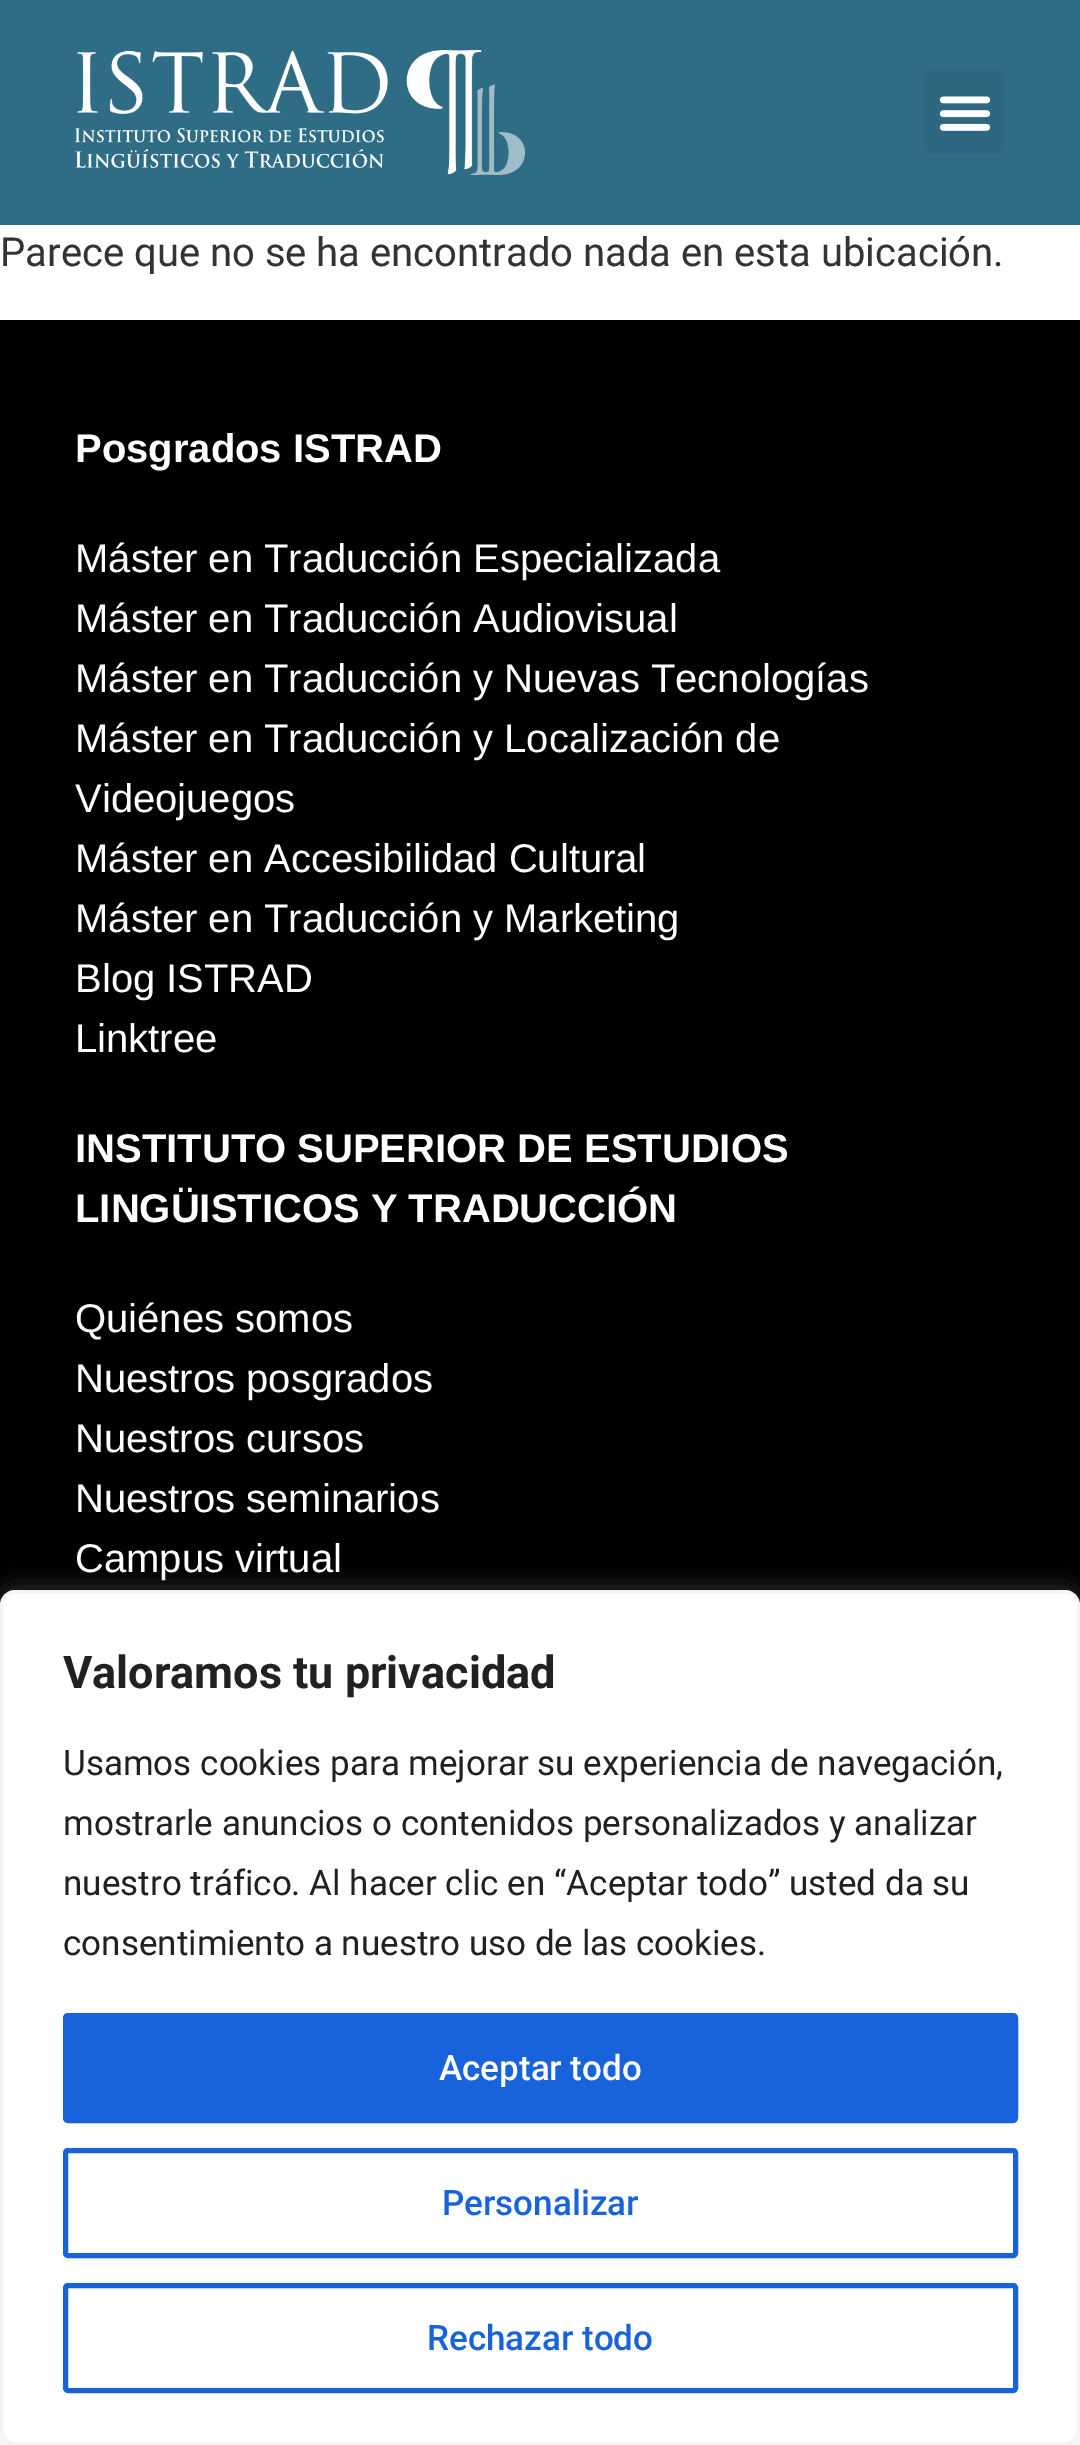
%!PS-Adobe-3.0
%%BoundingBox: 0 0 1080 2445
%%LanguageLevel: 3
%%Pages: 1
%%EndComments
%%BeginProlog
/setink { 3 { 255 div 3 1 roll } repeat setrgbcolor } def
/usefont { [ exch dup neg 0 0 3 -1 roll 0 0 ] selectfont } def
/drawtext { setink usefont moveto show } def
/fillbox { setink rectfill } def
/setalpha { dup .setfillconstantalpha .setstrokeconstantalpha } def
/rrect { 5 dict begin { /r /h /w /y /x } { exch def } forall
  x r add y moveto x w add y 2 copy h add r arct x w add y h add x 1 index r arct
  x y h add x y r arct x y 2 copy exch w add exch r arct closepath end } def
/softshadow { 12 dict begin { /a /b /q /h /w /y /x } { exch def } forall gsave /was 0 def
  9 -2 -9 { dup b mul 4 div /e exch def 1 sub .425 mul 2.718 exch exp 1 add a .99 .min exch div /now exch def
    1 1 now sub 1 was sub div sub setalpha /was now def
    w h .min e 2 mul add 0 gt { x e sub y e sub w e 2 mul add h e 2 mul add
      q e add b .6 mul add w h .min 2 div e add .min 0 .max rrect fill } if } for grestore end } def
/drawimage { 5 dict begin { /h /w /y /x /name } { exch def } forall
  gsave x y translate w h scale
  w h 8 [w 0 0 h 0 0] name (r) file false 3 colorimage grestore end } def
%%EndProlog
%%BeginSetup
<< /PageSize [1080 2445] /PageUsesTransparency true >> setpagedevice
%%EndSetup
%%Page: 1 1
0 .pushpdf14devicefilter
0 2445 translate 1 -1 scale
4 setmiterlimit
0 0 1080 2445 255 255 255 fillbox
0 0 1080 225 47 109 135 fillbox
(assets/img1.rgb) 75 50 450 125 drawimage
45 104 128 setink
923 70 82 83 8 rrect fill
(assets/img2.rgb) 939 96 52 35 drawimage
(Parece que no se ha encontrado nada en esta ubicación.) 0 266 /Roboto-Regular 40 51 51 51 drawtext
0 320 1080 1285 0 0 0 fillbox
(Posgrados ISTRAD) 75 462 /LiberationSans-Bold 40 255 255 255 drawtext
(Máster en Traducción Especializada) 75 572 /LiberationSans-Regular 40 255 255 255 drawtext
(Máster en Traducción Audiovisual) 75 632 /LiberationSans-Regular 40 255 255 255 drawtext
(Máster en Traducción y Nuevas Tecnologías) 75 692 /LiberationSans-Regular 40 255 255 255 drawtext
(Máster en Traducción y Localización de) 75 752 /LiberationSans-Regular 40 255 255 255 drawtext
(Videojuegos) 75 812 /LiberationSans-Regular 40 255 255 255 drawtext
(Máster en Accesibilidad Cultural) 75 872 /LiberationSans-Regular 40 255 255 255 drawtext
(Máster en Traducción y Marketing) 75 932 /LiberationSans-Regular 40 255 255 255 drawtext
(Blog ISTRAD) 75 992 /LiberationSans-Regular 40 255 255 255 drawtext
(Linktree) 75 1052 /LiberationSans-Regular 40 255 255 255 drawtext
(INSTITUTO SUPERIOR DE ESTUDIOS) 75 1162 /LiberationSans-Bold 40 255 255 255 drawtext
(LINGÜISTICOS Y TRADUCCIÓN) 75 1222 /LiberationSans-Bold 40 255 255 255 drawtext
(Quiénes somos) 75 1332 /LiberationSans-Regular 40 255 255 255 drawtext
(Nuestros posgrados) 75 1392 /LiberationSans-Regular 40 255 255 255 drawtext
(Nuestros cursos) 75 1452 /LiberationSans-Regular 40 255 255 255 drawtext
(Nuestros seminarios) 75 1512 /LiberationSans-Regular 40 255 255 255 drawtext
(Campus virtual) 75 1572 /LiberationSans-Regular 40 255 255 255 drawtext
172 171 171 setink
0 1588 1080 855 15 12.5 0.3 softshadow
255 255 255 setink
1.5 1591.5 1077 852 13.5 rrect gsave fill grestore
244 244 244 setink
3 setlinewidth
stroke
(Valoramos tu privacidad) 63 1688 /Roboto-Bold 45 33 33 33 drawtext
(Usamos cookies para mejorar su experiencia de navegación,) 63 1775 /Roboto-Regular 35 33 33 33 drawtext
(mostrarle anuncios o contenidos personalizados y analizar) 63 1835 /Roboto-Regular 35 33 33 33 drawtext
(nuestro tráfico. Al hacer clic en “Aceptar todo” usted da su) 63 1895 /Roboto-Regular 35 33 33 33 drawtext
(consentimiento a nuestro uso de las cookies.) 63 1955 /Roboto-Regular 35 33 33 33 drawtext
24 99 220 setink
65.5 2015.5 950 105 2.5 rrect gsave fill grestore
5 setlinewidth
stroke
(Aceptar todo) 439 2080 /Roboto-Medium 35 255 255 255 drawtext
24 99 220 setink
65.5 2150.5 950 105 2.5 rrect stroke
(Personalizar) 442 2215 /Roboto-Medium 35 24 99 220 drawtext
65.5 2285.5 950 105 2.5 rrect stroke
(Rechazar todo) 427 2350 /Roboto-Medium 35 24 99 220 drawtext
.poppdf14devicefilter showpage
%%EOF
